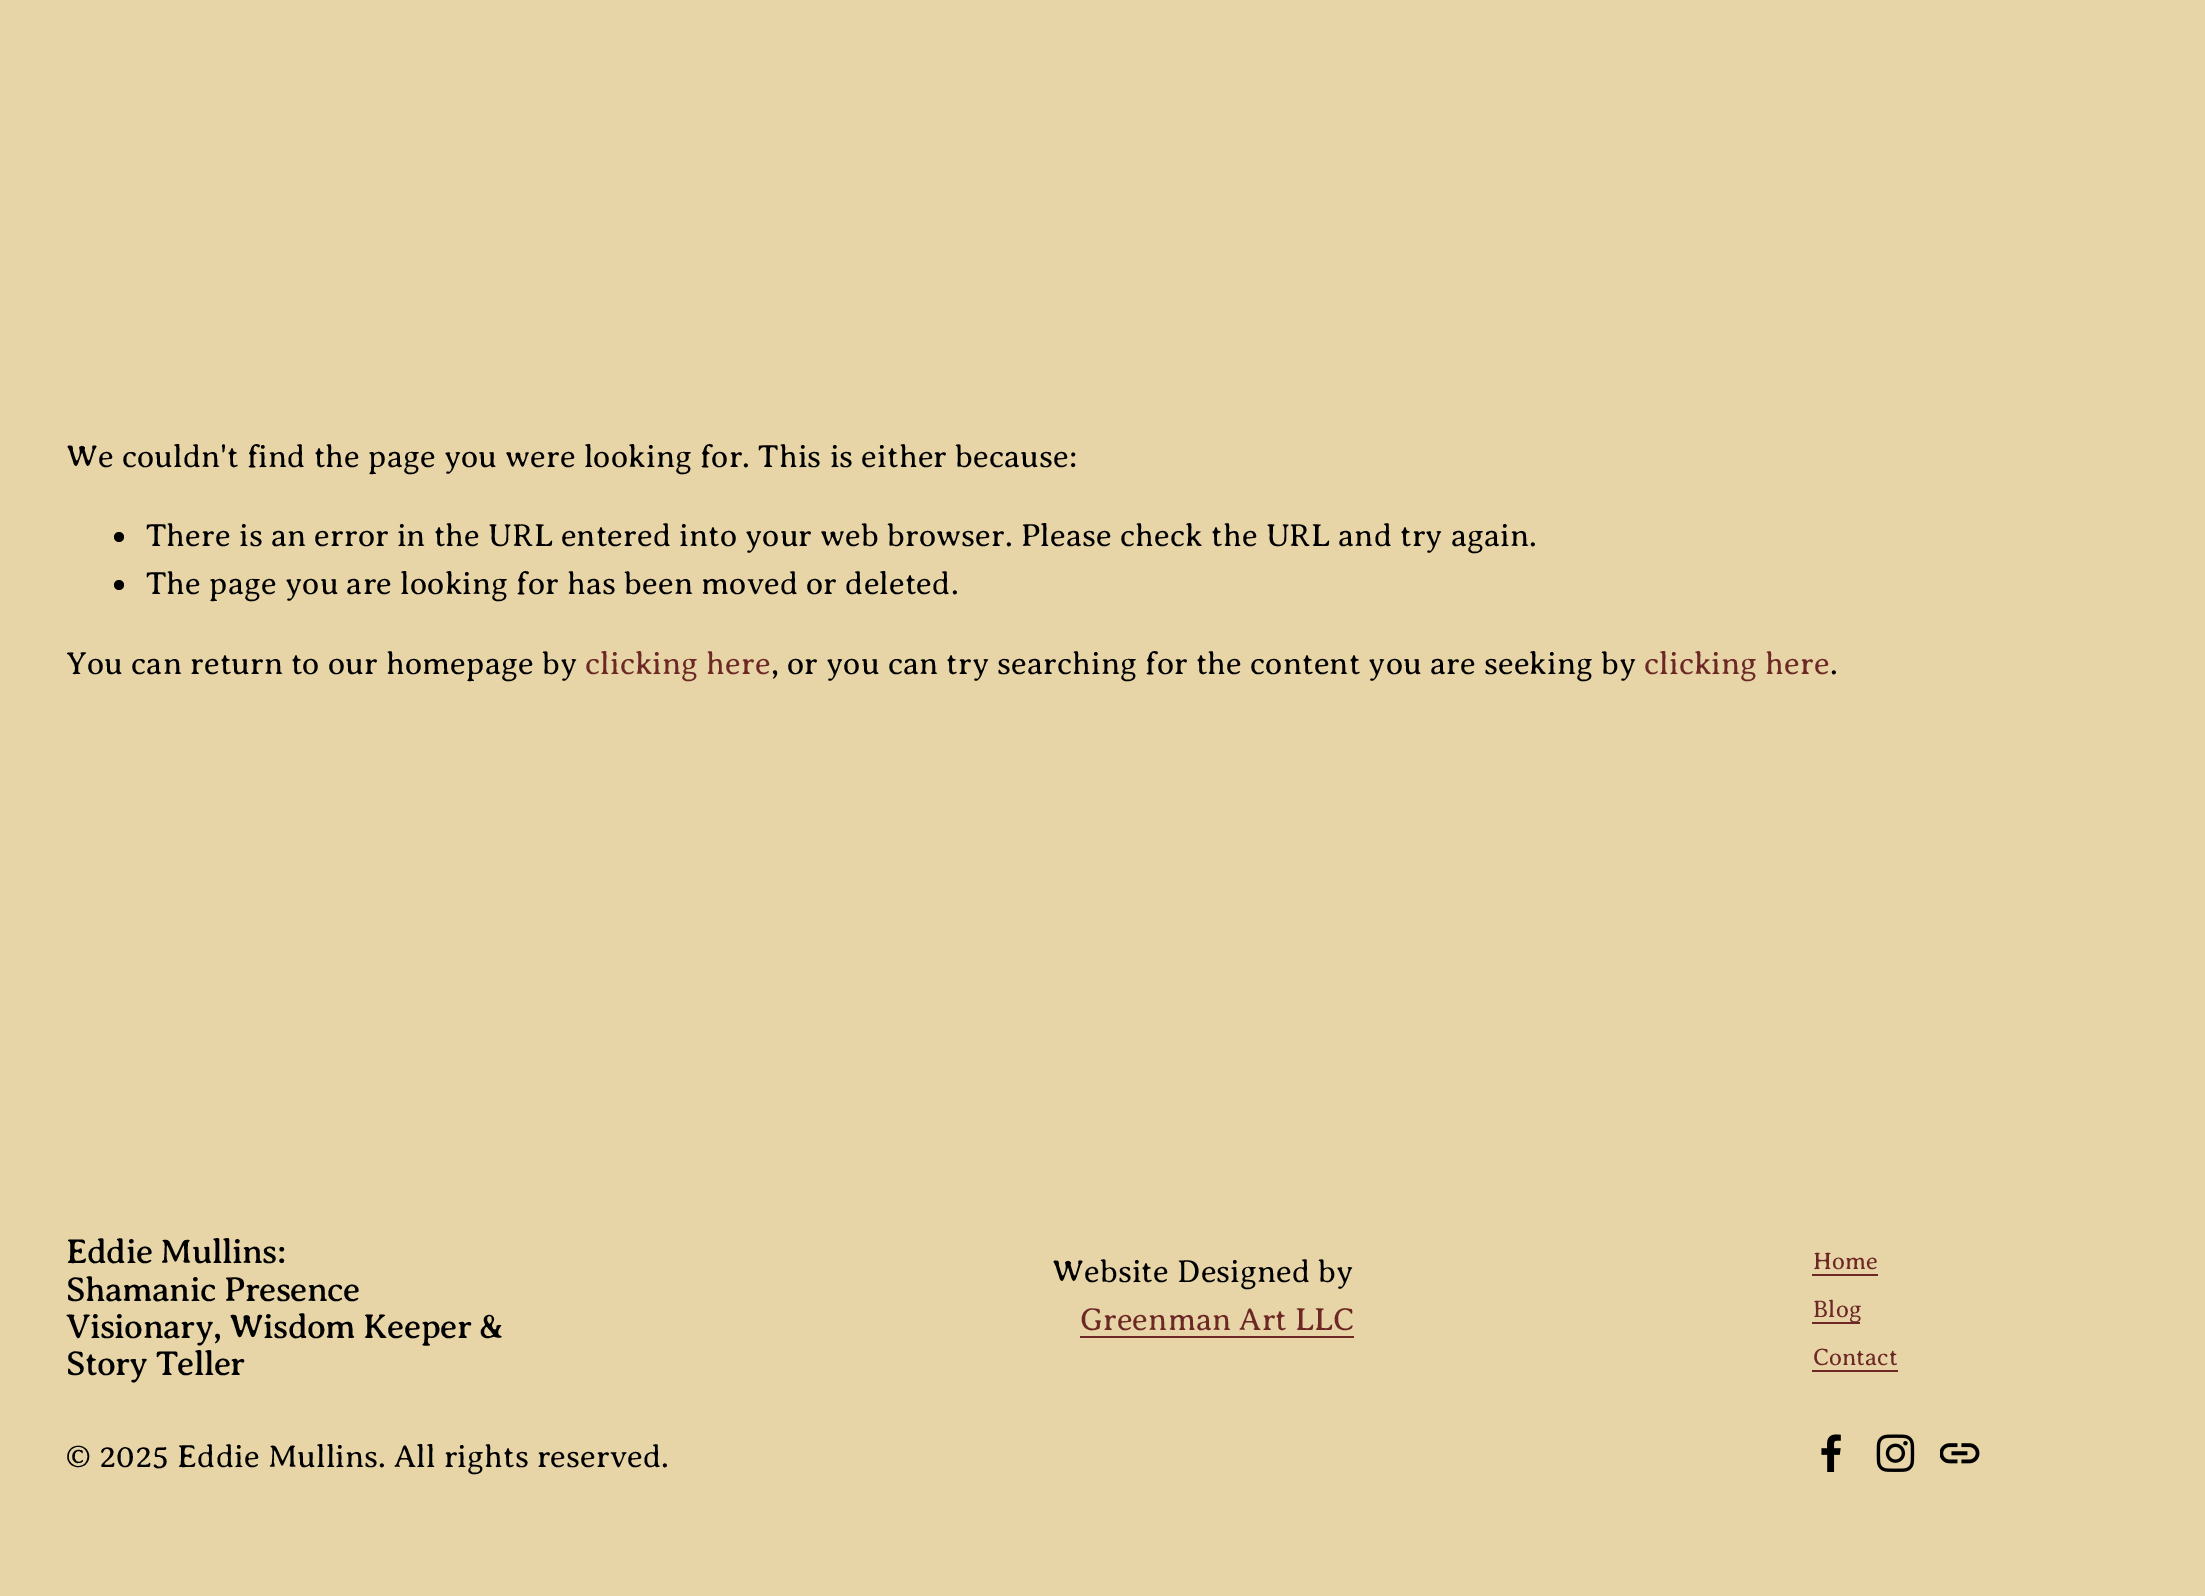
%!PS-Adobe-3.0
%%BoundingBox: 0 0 2205 1596
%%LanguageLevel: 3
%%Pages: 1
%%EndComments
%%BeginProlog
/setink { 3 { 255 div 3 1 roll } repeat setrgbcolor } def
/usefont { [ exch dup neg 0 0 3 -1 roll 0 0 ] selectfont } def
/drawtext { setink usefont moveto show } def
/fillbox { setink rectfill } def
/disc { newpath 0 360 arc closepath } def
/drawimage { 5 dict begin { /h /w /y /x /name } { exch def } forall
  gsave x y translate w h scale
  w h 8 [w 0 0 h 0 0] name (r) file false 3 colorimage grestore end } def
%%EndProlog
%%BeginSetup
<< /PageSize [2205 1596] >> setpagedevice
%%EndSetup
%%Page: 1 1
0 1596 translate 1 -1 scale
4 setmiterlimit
0 0 2205 1596 231 213 167 fillbox
(We couldn't find the page you were looking for. This is either because:) 66 467 /AveriaSerifLibre-Light 31.95 0 0 0 drawtext
119 537 5 disc fill
(There is an error in the URL entered into your web browser. Please check the URL and try again.) 146 546 /AveriaSerifLibre-Light 31.95 0 0 0 drawtext
119 585 5 disc fill
(The page you are looking for has been moved or deleted.) 146 594 /AveriaSerifLibre-Light 31.95 0 0 0 drawtext
(You can return to our homepage by) 66 674 /AveriaSerifLibre-Light 31.95 0 0 0 drawtext
(clicking here) 585 674 /AveriaSerifLibre-Light 31.95 109 40 38 drawtext
(, or you can try searching for the content you are seeking by) 771 674 /AveriaSerifLibre-Light 31.95 0 0 0 drawtext
(clicking here) 1644 674 /AveriaSerifLibre-Light 31.95 109 40 38 drawtext
(.) 1830 674 /AveriaSerifLibre-Light 31.95 0 0 0 drawtext
/AveriaSerifLibre-Regular 34.6 usefont
66 1263 moveto -0.7 0 (Eddie Mullins:) ashow
66 1301 moveto -0.7 0 (Shamanic Presence) ashow
66 1338 moveto -0.7 0 (Visionary, Wisdom Keeper &) ashow
66 1375 moveto -0.7 0 (Story Teller) ashow
(Website Designed by) 1052 1282 /AveriaSerifLibre-Light 31.95 0 0 0 drawtext
(Greenman Art LLC) 1080 1330 /AveriaSerifLibre-Light 31.95 109 40 38 drawtext
1080 1336 274 2 109 40 38 fillbox
(Home) 1813 1269 /AveriaSerifLibre-Light 24 109 40 38 drawtext
1812 1274 66 2 109 40 38 fillbox
1812 1322 48 2 109 40 38 fillbox
(Blog) 1813 1317 /AveriaSerifLibre-Light 24 109 40 38 drawtext
(Contact) 1813 1365 /AveriaSerifLibre-Light 24 109 40 38 drawtext
1812 1370 86 2 109 40 38 fillbox
(© 2025 Eddie Mullins. All rights reserved.) 66 1467 /AveriaSerifLibre-Light 31.95 0 0 0 drawtext
(assets/img1.rgb) 1821 1434 20 38 drawimage
(assets/img2.rgb) 1876 1434 39 38 drawimage
(assets/img3.rgb) 1940 1443 40 21 drawimage
showpage
%%EOF
